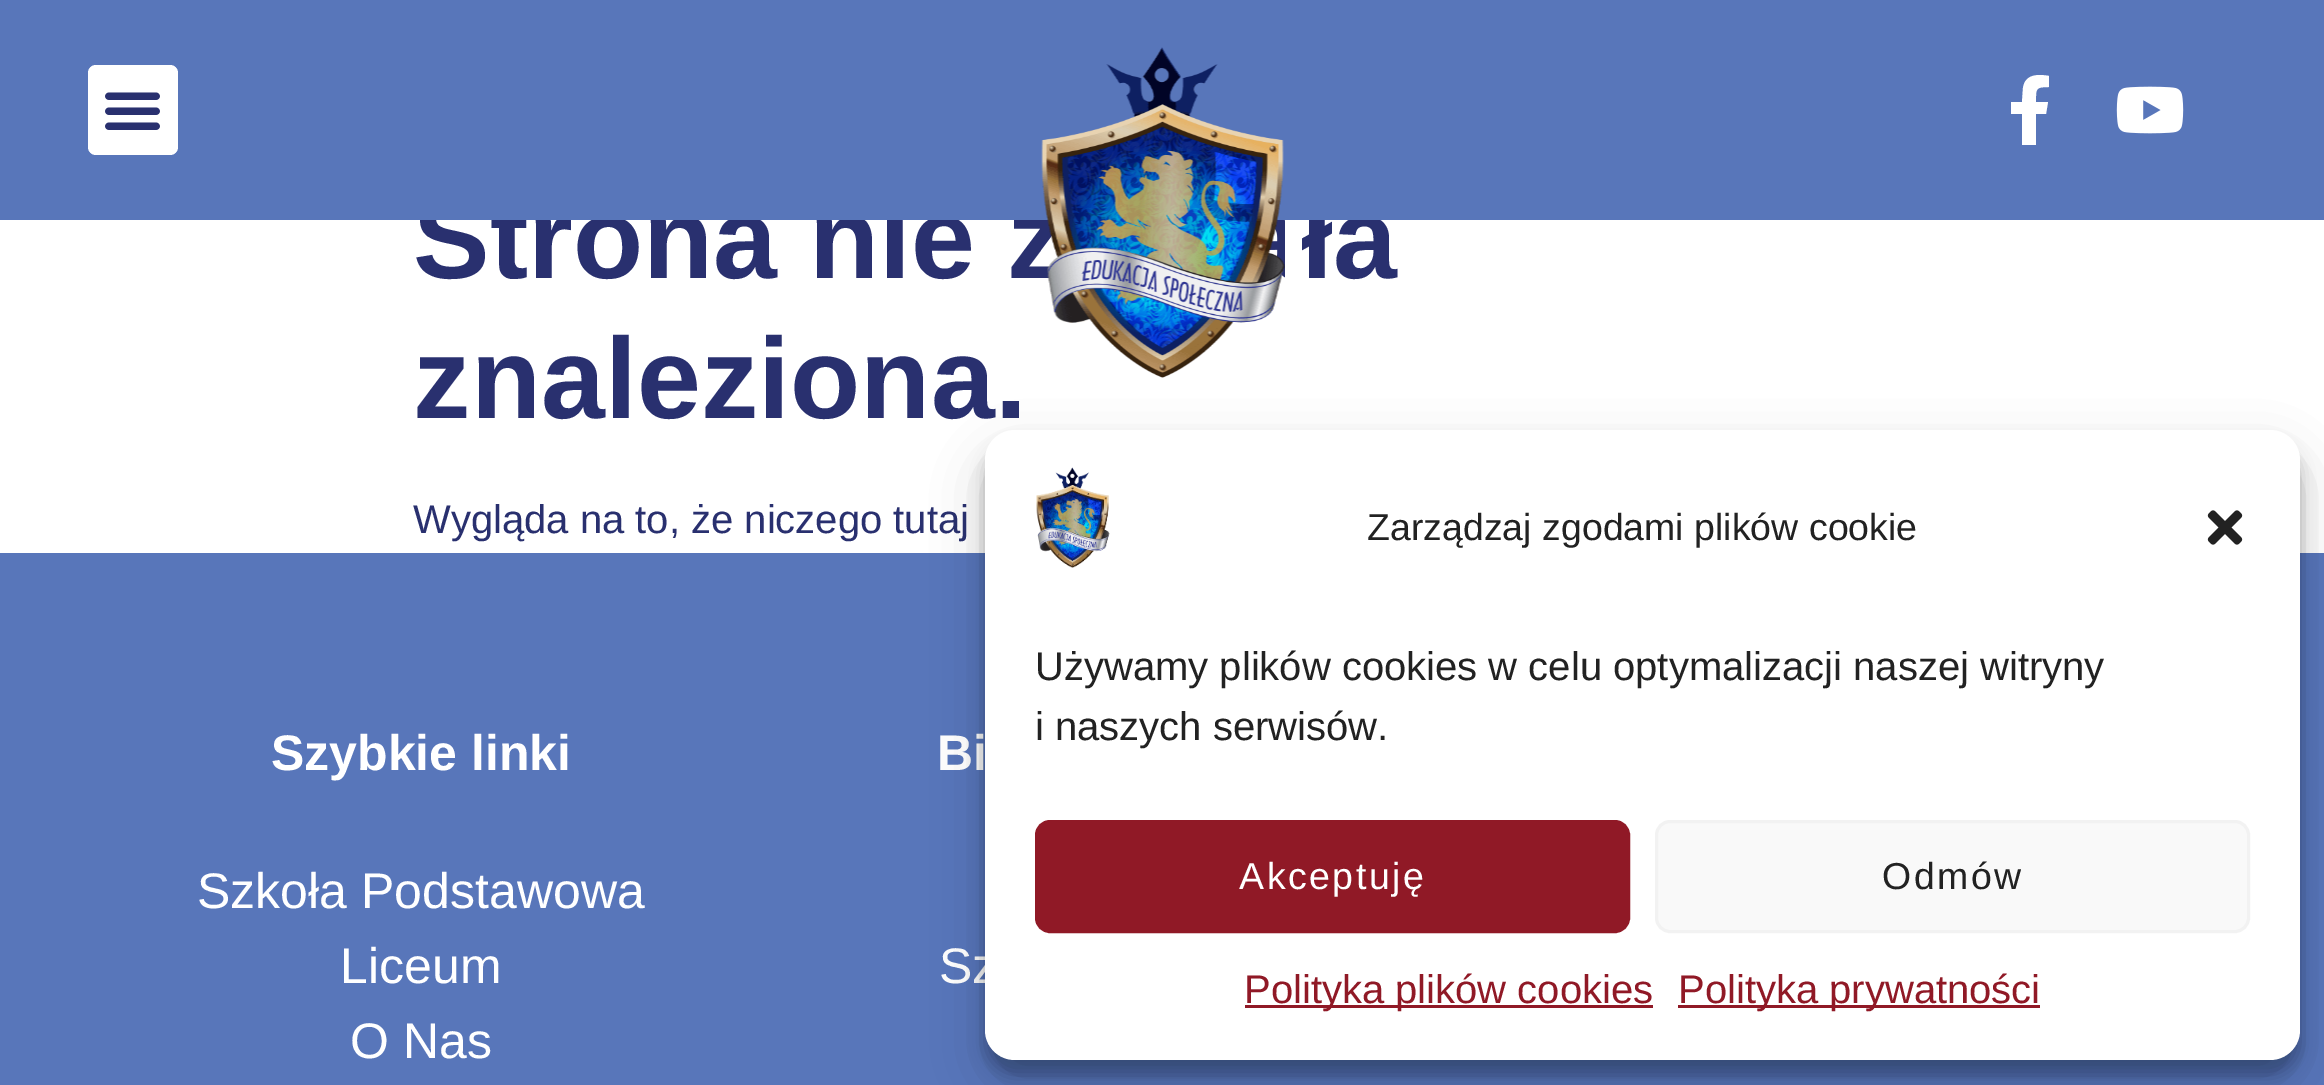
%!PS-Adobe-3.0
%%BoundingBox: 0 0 2324 1085
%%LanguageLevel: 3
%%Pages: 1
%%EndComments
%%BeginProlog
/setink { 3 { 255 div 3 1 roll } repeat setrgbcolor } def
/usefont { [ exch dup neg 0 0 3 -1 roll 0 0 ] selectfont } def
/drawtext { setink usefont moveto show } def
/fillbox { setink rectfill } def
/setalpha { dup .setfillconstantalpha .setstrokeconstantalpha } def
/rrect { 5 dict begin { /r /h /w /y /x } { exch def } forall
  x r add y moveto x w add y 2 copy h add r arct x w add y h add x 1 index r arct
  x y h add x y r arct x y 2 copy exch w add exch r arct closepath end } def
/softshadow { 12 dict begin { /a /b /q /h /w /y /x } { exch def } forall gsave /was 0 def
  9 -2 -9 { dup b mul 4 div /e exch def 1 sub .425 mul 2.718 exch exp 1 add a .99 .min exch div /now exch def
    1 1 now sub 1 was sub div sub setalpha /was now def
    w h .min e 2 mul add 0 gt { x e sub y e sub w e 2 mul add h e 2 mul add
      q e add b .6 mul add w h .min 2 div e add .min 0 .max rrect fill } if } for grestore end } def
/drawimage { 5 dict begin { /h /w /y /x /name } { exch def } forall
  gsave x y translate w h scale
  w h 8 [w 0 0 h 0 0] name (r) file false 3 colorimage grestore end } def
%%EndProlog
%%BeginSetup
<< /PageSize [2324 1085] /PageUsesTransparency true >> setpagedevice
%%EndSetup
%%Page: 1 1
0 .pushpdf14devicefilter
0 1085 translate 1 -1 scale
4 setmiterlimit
0 0 2324 1085 255 255 255 fillbox
(Strona nie z) 413 278 /LiberationSans-Bold 115 41 48 111 drawtext
(ła) 1301 278 /LiberationSans-Bold 115 41 48 111 drawtext
0 0 2324 220 88 118 186 fillbox
255 255 255 setink
88 65 90 90 8 rrect fill
(assets/img1.rgb) 105 92 55 38 drawimage
(assets/img2.rgb) 1041 47 244 331 drawimage
2046 114 moveto 2048 102 lineto 2036 102 lineto 2036 89 2035 87 2049 87 curveto 2049 76 lineto 2038 74 2025 74 2023 88 curveto 2022 102 lineto 2011 102 lineto 2011 114 lineto 2022 114 lineto 2022 145 lineto 2036 145 lineto 2036 114 lineto closepath fill
(assets/img3.rgb) 2116 86 68 48 drawimage
(znaleziona.) 413 418 /LiberationSans-Bold 115 41 48 111 drawtext
(Wygląda na to, że niczego tutaj) 413 533 /LiberationSans-Regular 40 41 48 111 drawtext
0 553 2324 532 88 118 186 fillbox
(Szybkie linki) 271 770 /LiberationSans-Bold 50 255 255 255 drawtext
(Szkoła Podstawowa) 197 908 /LiberationSans-Regular 50 255 255 255 drawtext
(Liceum) 340 983 /LiberationSans-Regular 50 255 255 255 drawtext
(O Nas) 350 1058 /LiberationSans-Regular 50 255 255 255 drawtext
(Bi) 937 770 /LiberationSans-Bold 50 255 255 255 drawtext
(Sz) 939 983 /LiberationSans-Regular 50 255 255 255 drawtext
0 0 0 setink
985 445 1315 630 30 7.5 0.23 softshadow
985 455 1315 630 30 25 0.19 softshadow
255 255 255 setink
985 430 1315 630 30 rrect fill
(assets/img4.rgb) 1036 467 74 101 drawimage
(Zarządzaj zgodami plików cookie) 1367 540 /LiberationSans-Regular 37.5 34 34 34 drawtext
(assets/img5.rgb) 2207 510 36 35 drawimage
(Używamy plików cookies w celu optymalizacji naszej witryny) 1035 680 /LiberationSans-Regular 40 34 34 34 drawtext
(i naszych serwisów.) 1035 740 /LiberationSans-Regular 40 34 34 34 drawtext
144 25 38 setink
1036.5 821.5 592 110 13.5 rrect gsave fill grestore
3 setlinewidth
stroke
/LiberationSans-Regular 37.5 usefont
255 255 255 setink
1239 889 moveto 2.5 0 (Akceptuję) ashow
249 249 249 setink
1656.5 821.5 592 110 13.5 rrect gsave fill grestore
242 242 242 setink
stroke
34 34 34 setink
1882 889 moveto 2.5 0 (Odmów) ashow
1245 1005 408 3 144 25 38 fillbox
(Polityka plików cookies) 1244 1003 /LiberationSans-Regular 40 144 25 38 drawtext
1678 1005 362 3 144 25 38 fillbox
(Polityka prywatności) 1678 1003 /LiberationSans-Regular 40 144 25 38 drawtext
.poppdf14devicefilter showpage
%%EOF
